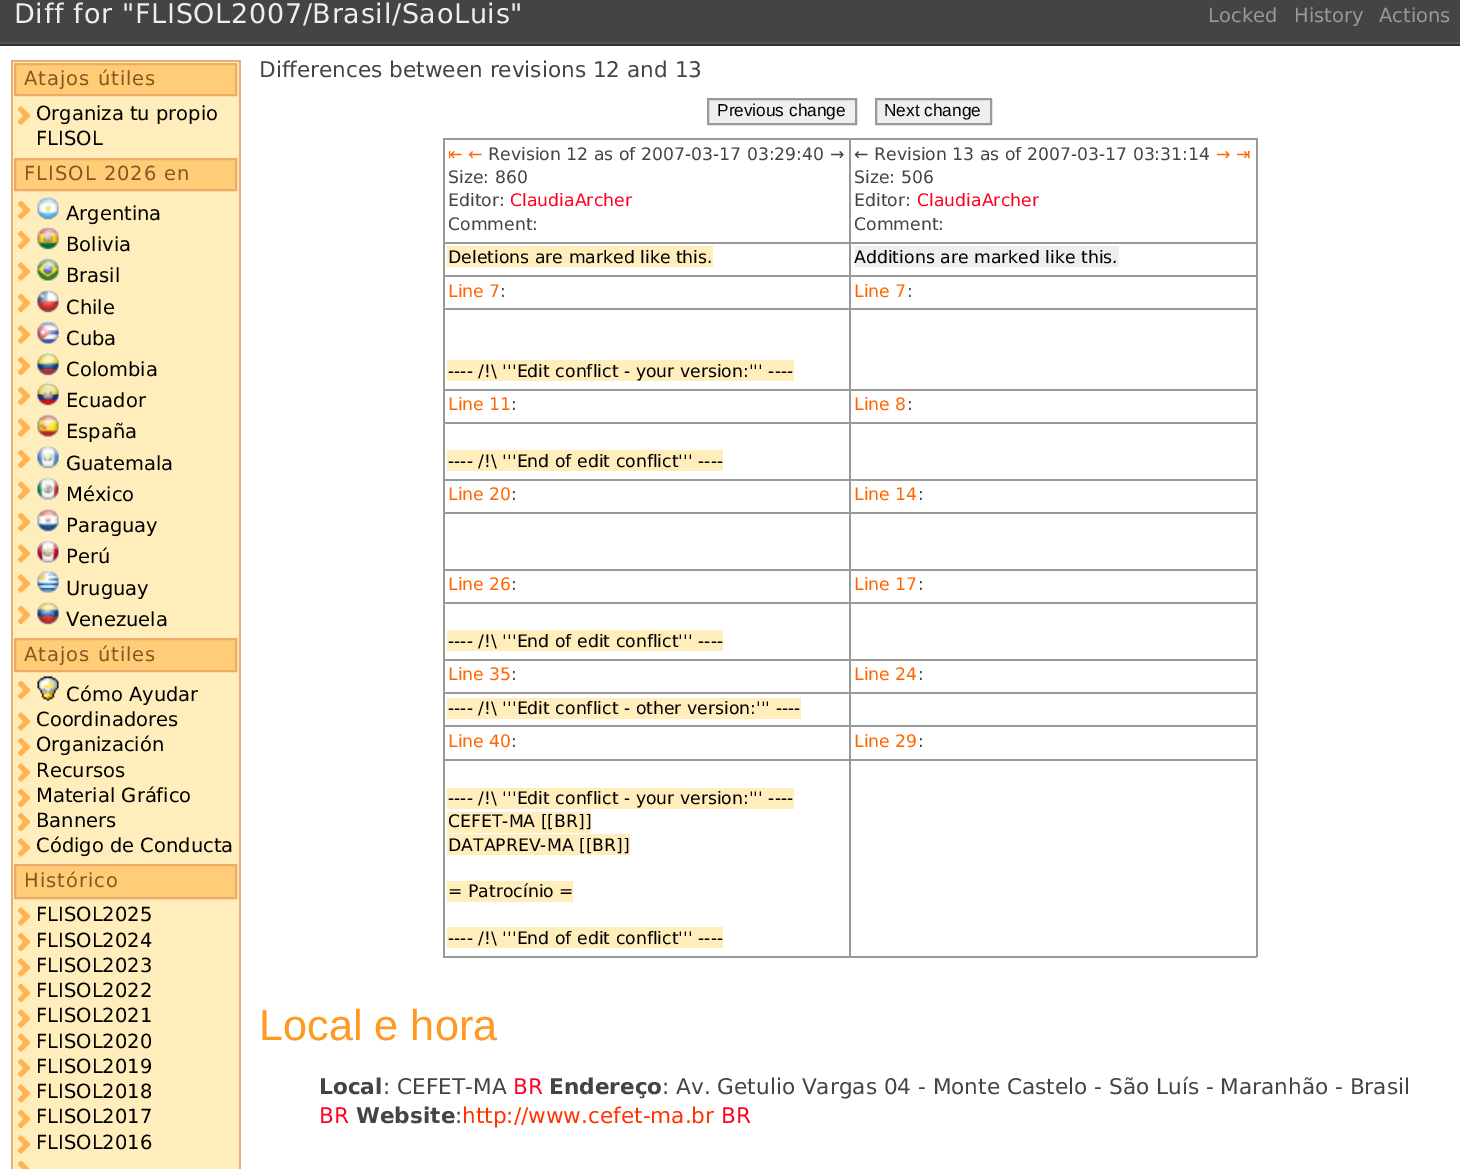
%!PS-Adobe-3.0
%%BoundingBox: 0 0 1460 1169
%%LanguageLevel: 3
%%Pages: 1
%%EndComments
%%BeginProlog
/setink { 3 { 255 div 3 1 roll } repeat setrgbcolor } def
/usefont { [ exch dup neg 0 0 3 -1 roll 0 0 ] selectfont } def
/drawtext { setink usefont moveto show } def
/fillbox { setink rectfill } def
/drawimage { 5 dict begin { /h /w /y /x /name } { exch def } forall
  gsave x y translate w h scale
  w h 8 [w 0 0 h 0 0] name (r) file false 3 colorimage grestore end } def
%%EndProlog
%%BeginSetup
<< /PageSize [1460 1169] >> setpagedevice
%%EndSetup
%%Page: 1 1
0 1169 translate 1 -1 scale
4 setmiterlimit
0 0 1460 1169 255 255 255 fillbox
0 44 1460 2 51 51 51 fillbox
0 0 1460 42 68 68 68 fillbox
0 42 1460 2 85 85 85 fillbox
/DejaVuSans-Regular 27 usefont
238 238 238 setink
14 23 moveto 0.7 0 (Diff for "FLISOL2007/Brasil/SaoLuis") ashow
(Locked) 1208 22 /DejaVuSans-Regular 19.5 153 153 153 drawtext
(History) 1294 22 /DejaVuSans-Regular 19.5 153 153 153 drawtext
(Actions) 1379 22 /DejaVuSans-Regular 19.5 153 153 153 drawtext
13 62 226 1107 255 238 187 fillbox
11 60 229 2 238 170 119 fillbox
239 60 2 1109 238 170 119 fillbox
11 60 2 1109 238 170 119 fillbox
255 204 119 setink
15 64 moveto 236 64 lineto 236 95 lineto 15 95 lineto closepath gsave fill grestore
238 170 102 setink
2 setlinewidth
stroke
136 85 34 setink
24 85 moveto 1 0 (Atajos útiles) ashow
(assets/img1.rgb) 18 106 12 19 drawimage
(Organiza tu propio) 36 120 /DejaVuSans-Regular 19.5 0 0 0 drawtext
(FLISOL) 36 145 /DejaVuSans-Regular 19.5 0 0 0 drawtext
255 204 119 setink
15 159 moveto 236 159 lineto 236 190 lineto 15 190 lineto closepath gsave fill grestore
238 170 102 setink
stroke
136 85 34 setink
24 180 moveto 1 0 (FLISOL 2026 en) ashow
(assets/img2.rgb) 18 201 12 18 drawimage
(assets/img3.rgb) 36 196 24 25 drawimage
(Argentina) 66 220 /DejaVuSans-Regular 19.5 0 0 0 drawtext
(assets/img2.rgb) 18 231 12 18 drawimage
(assets/img4.rgb) 36 226 24 25 drawimage
(Bolivia) 66 251 /DejaVuSans-Regular 19.5 0 0 0 drawtext
(assets/img1.rgb) 18 262 12 19 drawimage
(assets/img5.rgb) 36 258 24 24 drawimage
(Brasil) 66 282 /DejaVuSans-Regular 19.5 0 0 0 drawtext
(assets/img2.rgb) 18 294 12 18 drawimage
(assets/img6.rgb) 36 289 24 25 drawimage
(Chile) 66 314 /DejaVuSans-Regular 19.5 0 0 0 drawtext
(assets/img1.rgb) 18 325 12 19 drawimage
(assets/img7.rgb) 36 321 24 24 drawimage
(Cuba) 66 345 /DejaVuSans-Regular 19.5 0 0 0 drawtext
(assets/img2.rgb) 18 357 12 18 drawimage
(assets/img8.rgb) 36 352 24 25 drawimage
(Colombia) 66 376 /DejaVuSans-Regular 19.5 0 0 0 drawtext
(assets/img2.rgb) 18 387 12 18 drawimage
(assets/img9.rgb) 36 382 24 25 drawimage
(Ecuador) 66 407 /DejaVuSans-Regular 19.5 0 0 0 drawtext
(assets/img1.rgb) 18 418 12 19 drawimage
(assets/img10.rgb) 36 414 24 24 drawimage
(España) 66 438 /DejaVuSans-Regular 19.5 0 0 0 drawtext
(assets/img2.rgb) 18 450 12 18 drawimage
(assets/img11.rgb) 36 445 24 25 drawimage
(Guatemala) 66 470 /DejaVuSans-Regular 19.5 0 0 0 drawtext
(assets/img1.rgb) 18 481 12 19 drawimage
(assets/img12.rgb) 36 477 24 24 drawimage
(México) 66 501 /DejaVuSans-Regular 19.5 0 0 0 drawtext
(assets/img2.rgb) 18 513 12 18 drawimage
(assets/img13.rgb) 36 508 24 25 drawimage
(Paraguay) 66 532 /DejaVuSans-Regular 19.5 0 0 0 drawtext
(assets/img1.rgb) 18 544 12 19 drawimage
(assets/img14.rgb) 36 540 24 24 drawimage
(Perú) 66 563 /DejaVuSans-Regular 19.5 0 0 0 drawtext
(assets/img1.rgb) 18 574 12 19 drawimage
(assets/img15.rgb) 36 570 24 24 drawimage
(Uruguay) 66 595 /DejaVuSans-Regular 19.5 0 0 0 drawtext
(assets/img2.rgb) 18 606 12 18 drawimage
(assets/img16.rgb) 36 601 24 25 drawimage
(Venezuela) 66 626 /DejaVuSans-Regular 19.5 0 0 0 drawtext
255 204 119 setink
15 639 moveto 236 639 lineto 236 671 lineto 15 671 lineto closepath gsave fill grestore
238 170 102 setink
stroke
136 85 34 setink
24 661 moveto 1 0 (Atajos útiles) ashow
(assets/img2.rgb) 18 681 12 18 drawimage
(assets/img17.rgb) 37 676 22 25 drawimage
(Cómo Ayudar) 66 701 /DejaVuSans-Regular 19.5 0 0 0 drawtext
(assets/img1.rgb) 18 712 12 19 drawimage
(Coordinadores) 36 726 /DejaVuSans-Regular 19.5 0 0 0 drawtext
(assets/img2.rgb) 18 738 12 18 drawimage
(Organización) 36 751 /DejaVuSans-Regular 19.5 0 0 0 drawtext
(assets/img1.rgb) 18 763 12 19 drawimage
(Recursos) 36 777 /DejaVuSans-Regular 19.5 0 0 0 drawtext
(assets/img2.rgb) 18 789 12 18 drawimage
(Material Gráfico) 36 802 /DejaVuSans-Regular 19.5 0 0 0 drawtext
(assets/img2.rgb) 18 813 12 18 drawimage
(Banners) 36 827 /DejaVuSans-Regular 19.5 0 0 0 drawtext
(assets/img1.rgb) 18 838 12 19 drawimage
(Código de Conducta) 36 852 /DejaVuSans-Regular 19.5 0 0 0 drawtext
255 204 119 setink
15 865 moveto 236 865 lineto 236 898 lineto 15 898 lineto closepath gsave fill grestore
238 170 102 setink
stroke
136 85 34 setink
24 887 moveto 1 0 (Histórico) ashow
(assets/img1.rgb) 18 907 12 19 drawimage
(FLISOL2025) 36 921 /DejaVuSans-Regular 19.5 0 0 0 drawtext
(assets/img2.rgb) 18 933 12 18 drawimage
(FLISOL2024) 36 947 /DejaVuSans-Regular 19.5 0 0 0 drawtext
(assets/img1.rgb) 18 958 12 19 drawimage
(FLISOL2023) 36 972 /DejaVuSans-Regular 19.5 0 0 0 drawtext
(assets/img2.rgb) 18 984 12 18 drawimage
(FLISOL2022) 36 997 /DejaVuSans-Regular 19.5 0 0 0 drawtext
(assets/img1.rgb) 18 1009 12 19 drawimage
(FLISOL2021) 36 1022 /DejaVuSans-Regular 19.5 0 0 0 drawtext
(assets/img1.rgb) 18 1033 12 19 drawimage
(FLISOL2020) 36 1048 /DejaVuSans-Regular 19.5 0 0 0 drawtext
(assets/img2.rgb) 18 1059 12 18 drawimage
(FLISOL2019) 36 1073 /DejaVuSans-Regular 19.5 0 0 0 drawtext
(assets/img1.rgb) 18 1084 12 19 drawimage
(FLISOL2018) 36 1098 /DejaVuSans-Regular 19.5 0 0 0 drawtext
(assets/img2.rgb) 18 1110 12 18 drawimage
(FLISOL2017) 36 1123 /DejaVuSans-Regular 19.5 0 0 0 drawtext
(assets/img1.rgb) 18 1135 12 19 drawimage
(FLISOL2016) 36 1149 /DejaVuSans-Regular 19.5 0 0 0 drawtext
(assets/img18.rgb) 18 1161 12 8 drawimage
(Differences between revisions 12 and 13) 259 77 /DejaVuSans-Regular 21.6 68 68 68 drawtext
239 239 239 setink
708 99 moveto 856 99 lineto 856 124 lineto 708 124 lineto closepath gsave fill grestore
153 153 153 setink
stroke
(Previous change) 717 116 /LiberationSans-Regular 17.25 0 0 0 drawtext
239 239 239 setink
876 99 moveto 991 99 lineto 991 124 lineto 876 124 lineto closepath gsave fill grestore
153 153 153 setink
stroke
(Next change) 884 116 /LiberationSans-Regular 17.25 0 0 0 drawtext
849 138 408 2 153 153 153 fillbox
849 242 408 2 153 153 153 fillbox
849 275 408 2 153 153 153 fillbox
849 308 408 2 153 153 153 fillbox
849 389 408 2 153 153 153 fillbox
849 422 408 2 153 153 153 fillbox
849 479 408 2 153 153 153 fillbox
849 512 408 2 153 153 153 fillbox
849 569 408 2 153 153 153 fillbox
849 602 408 2 153 153 153 fillbox
849 659 408 2 153 153 153 fillbox
849 692 408 2 153 153 153 fillbox
849 725 408 2 153 153 153 fillbox
849 759 408 2 153 153 153 fillbox
1256 759 2 198 153 153 153 fillbox
849 956 408 2 153 153 153 fillbox
849 759 2 198 153 153 153 fillbox
443 759 408 2 153 153 153 fillbox
849 725 2 36 153 153 153 fillbox
443 725 408 2 153 153 153 fillbox
849 692 2 34 153 153 153 fillbox
443 692 408 2 153 153 153 fillbox
849 659 2 34 153 153 153 fillbox
443 659 408 2 153 153 153 fillbox
849 602 2 58 153 153 153 fillbox
443 602 408 2 153 153 153 fillbox
849 569 2 34 153 153 153 fillbox
443 569 408 2 153 153 153 fillbox
849 512 2 58 153 153 153 fillbox
443 512 408 2 153 153 153 fillbox
849 479 2 34 153 153 153 fillbox
443 479 408 2 153 153 153 fillbox
849 422 2 58 153 153 153 fillbox
443 422 408 2 153 153 153 fillbox
849 389 2 34 153 153 153 fillbox
443 389 408 2 153 153 153 fillbox
849 308 2 82 153 153 153 fillbox
443 308 408 2 153 153 153 fillbox
849 275 2 34 153 153 153 fillbox
443 275 408 2 153 153 153 fillbox
849 242 2 34 153 153 153 fillbox
443 242 408 2 153 153 153 fillbox
849 138 2 105 153 153 153 fillbox
443 138 408 2 153 153 153 fillbox
443 956 408 2 153 153 153 fillbox
443 759 2 198 153 153 153 fillbox
443 725 2 36 153 153 153 fillbox
443 692 2 34 153 153 153 fillbox
443 659 2 34 153 153 153 fillbox
443 602 2 58 153 153 153 fillbox
443 569 2 34 153 153 153 fillbox
443 512 2 58 153 153 153 fillbox
443 479 2 34 153 153 153 fillbox
443 422 2 58 153 153 153 fillbox
443 389 2 34 153 153 153 fillbox
443 308 2 82 153 153 153 fillbox
443 275 2 34 153 153 153 fillbox
443 242 2 34 153 153 153 fillbox
443 138 2 105 153 153 153 fillbox
(⇤ ←) 448 160 /DejaVuSans-Regular 17.25 255 102 0 drawtext
(Revision 12 as of 2007-03-17 03:29:40 →) 488 160 /DejaVuSans-Regular 17.25 68 68 68 drawtext
(Size: 860) 448 183 /DejaVuSans-Regular 17.25 68 68 68 drawtext
(Editor:) 448 206 /DejaVuSans-Regular 17.25 68 68 68 drawtext
(ClaudiaArcher) 510 206 /DejaVuSans-Regular 17.25 255 0 34 drawtext
(Comment:) 448 230 /DejaVuSans-Regular 17.25 68 68 68 drawtext
1256 725 2 36 153 153 153 fillbox
1256 692 2 34 153 153 153 fillbox
1256 659 2 34 153 153 153 fillbox
1256 602 2 58 153 153 153 fillbox
1256 569 2 34 153 153 153 fillbox
1256 512 2 58 153 153 153 fillbox
1256 479 2 34 153 153 153 fillbox
1256 422 2 58 153 153 153 fillbox
1256 389 2 34 153 153 153 fillbox
1256 308 2 82 153 153 153 fillbox
1256 275 2 34 153 153 153 fillbox
1256 242 2 34 153 153 153 fillbox
1256 138 2 105 153 153 153 fillbox
(← Revision 13 as of 2007-03-17 03:31:14) 854 160 /DejaVuSans-Regular 17.25 68 68 68 drawtext
(→ ⇥) 1216 160 /DejaVuSans-Regular 17.25 255 102 0 drawtext
(Size: 506) 854 183 /DejaVuSans-Regular 17.25 68 68 68 drawtext
(Editor:) 854 206 /DejaVuSans-Regular 17.25 68 68 68 drawtext
(ClaudiaArcher) 917 206 /DejaVuSans-Regular 17.25 255 0 34 drawtext
(Comment:) 854 230 /DejaVuSans-Regular 17.25 68 68 68 drawtext
447 246 266 21 255 238 187 fillbox
(Deletions are marked like this.) 448 263 /DejaVuSans-Regular 17.25 0 0 0 drawtext
855 246 264 21 238 238 238 fillbox
(Additions are marked like this.) 854 263 /DejaVuSans-Regular 17.25 0 0 0 drawtext
(Line 7) 448 297 /DejaVuSans-Regular 17.25 255 102 0 drawtext
(:) 500 297 /DejaVuSans-Regular 17.25 68 68 68 drawtext
(Line 7) 854 297 /DejaVuSans-Regular 17.25 255 102 0 drawtext
(:) 907 297 /DejaVuSans-Regular 17.25 68 68 68 drawtext
447 360 347 21 255 238 187 fillbox
(---- /!\\ '''Edit conflict - your version:''' ----) 448 377 /DejaVuSans-Regular 17.25 0 0 0 drawtext
(Line 11) 448 410 /DejaVuSans-Regular 17.25 255 102 0 drawtext
(:) 511 410 /DejaVuSans-Regular 17.25 68 68 68 drawtext
(Line 8) 854 410 /DejaVuSans-Regular 17.25 255 102 0 drawtext
(:) 907 410 /DejaVuSans-Regular 17.25 68 68 68 drawtext
447 450 276 21 255 238 187 fillbox
(---- /!\\ '''End of edit conflict''' ----) 448 467 /DejaVuSans-Regular 17.25 0 0 0 drawtext
(Line 20) 448 500 /DejaVuSans-Regular 17.25 255 102 0 drawtext
(:) 511 500 /DejaVuSans-Regular 17.25 68 68 68 drawtext
(Line 14) 854 500 /DejaVuSans-Regular 17.25 255 102 0 drawtext
(:) 918 500 /DejaVuSans-Regular 17.25 68 68 68 drawtext
(Line 26) 448 590 /DejaVuSans-Regular 17.25 255 102 0 drawtext
(:) 511 590 /DejaVuSans-Regular 17.25 68 68 68 drawtext
(Line 17) 854 590 /DejaVuSans-Regular 17.25 255 102 0 drawtext
(:) 918 590 /DejaVuSans-Regular 17.25 68 68 68 drawtext
447 630 276 21 255 238 187 fillbox
(---- /!\\ '''End of edit conflict''' ----) 448 647 /DejaVuSans-Regular 17.25 0 0 0 drawtext
(Line 35) 448 680 /DejaVuSans-Regular 17.25 255 102 0 drawtext
(:) 511 680 /DejaVuSans-Regular 17.25 68 68 68 drawtext
(Line 24) 854 680 /DejaVuSans-Regular 17.25 255 102 0 drawtext
(:) 918 680 /DejaVuSans-Regular 17.25 68 68 68 drawtext
447 698 354 21 255 238 187 fillbox
(---- /!\\ '''Edit conflict - other version:''' ----) 448 714 /DejaVuSans-Regular 17.25 0 0 0 drawtext
(Line 40) 448 747 /DejaVuSans-Regular 17.25 255 102 0 drawtext
(:) 511 747 /DejaVuSans-Regular 17.25 68 68 68 drawtext
(Line 29) 854 747 /DejaVuSans-Regular 17.25 255 102 0 drawtext
(:) 918 747 /DejaVuSans-Regular 17.25 68 68 68 drawtext
447 788 347 21 255 238 187 fillbox
(---- /!\\ '''Edit conflict - your version:''' ----) 448 804 /DejaVuSans-Regular 17.25 0 0 0 drawtext
447 812 144 21 255 238 187 fillbox
(CEFET-MA [[BR]]) 448 827 /DejaVuSans-Regular 17.25 0 0 0 drawtext
447 834 183 21 255 238 187 fillbox
(DATAPREV-MA [[BR]]) 448 851 /DejaVuSans-Regular 17.25 0 0 0 drawtext
447 881 126 21 255 238 187 fillbox
(= Patrocínio =) 448 897 /DejaVuSans-Regular 17.25 0 0 0 drawtext
447 927 276 21 255 238 187 fillbox
(---- /!\\ '''End of edit conflict''' ----) 448 944 /DejaVuSans-Regular 17.25 0 0 0 drawtext
(Local e hora) 259 1040 /LiberationSans-Regular 43.25 255 153 34 drawtext
(Local) 319 1094 /DejaVuSans-Bold 21.6 68 68 68 drawtext
(: CEFET-MA) 383 1094 /DejaVuSans-Regular 21.6 68 68 68 drawtext
(BR) 513 1094 /DejaVuSans-Regular 21.6 255 0 34 drawtext
(Endereço) 549 1094 /DejaVuSans-Bold 21.6 68 68 68 drawtext
(: Av. Getulio Vargas 04 - Monte Castelo - São Luís - Maranhão - Brasil) 662 1094 /DejaVuSans-Regular 21.6 68 68 68 drawtext
(BR) 319 1123 /DejaVuSans-Regular 21.6 255 0 34 drawtext
(Website) 356 1123 /DejaVuSans-Bold 21.6 68 68 68 drawtext
(:) 455 1123 /DejaVuSans-Regular 21.6 68 68 68 drawtext
(http://www.cefet-ma.br) 462 1123 /DejaVuSans-Regular 21.6 255 51 0 drawtext
(BR) 721 1123 /DejaVuSans-Regular 21.6 255 0 34 drawtext
showpage
%%EOF
